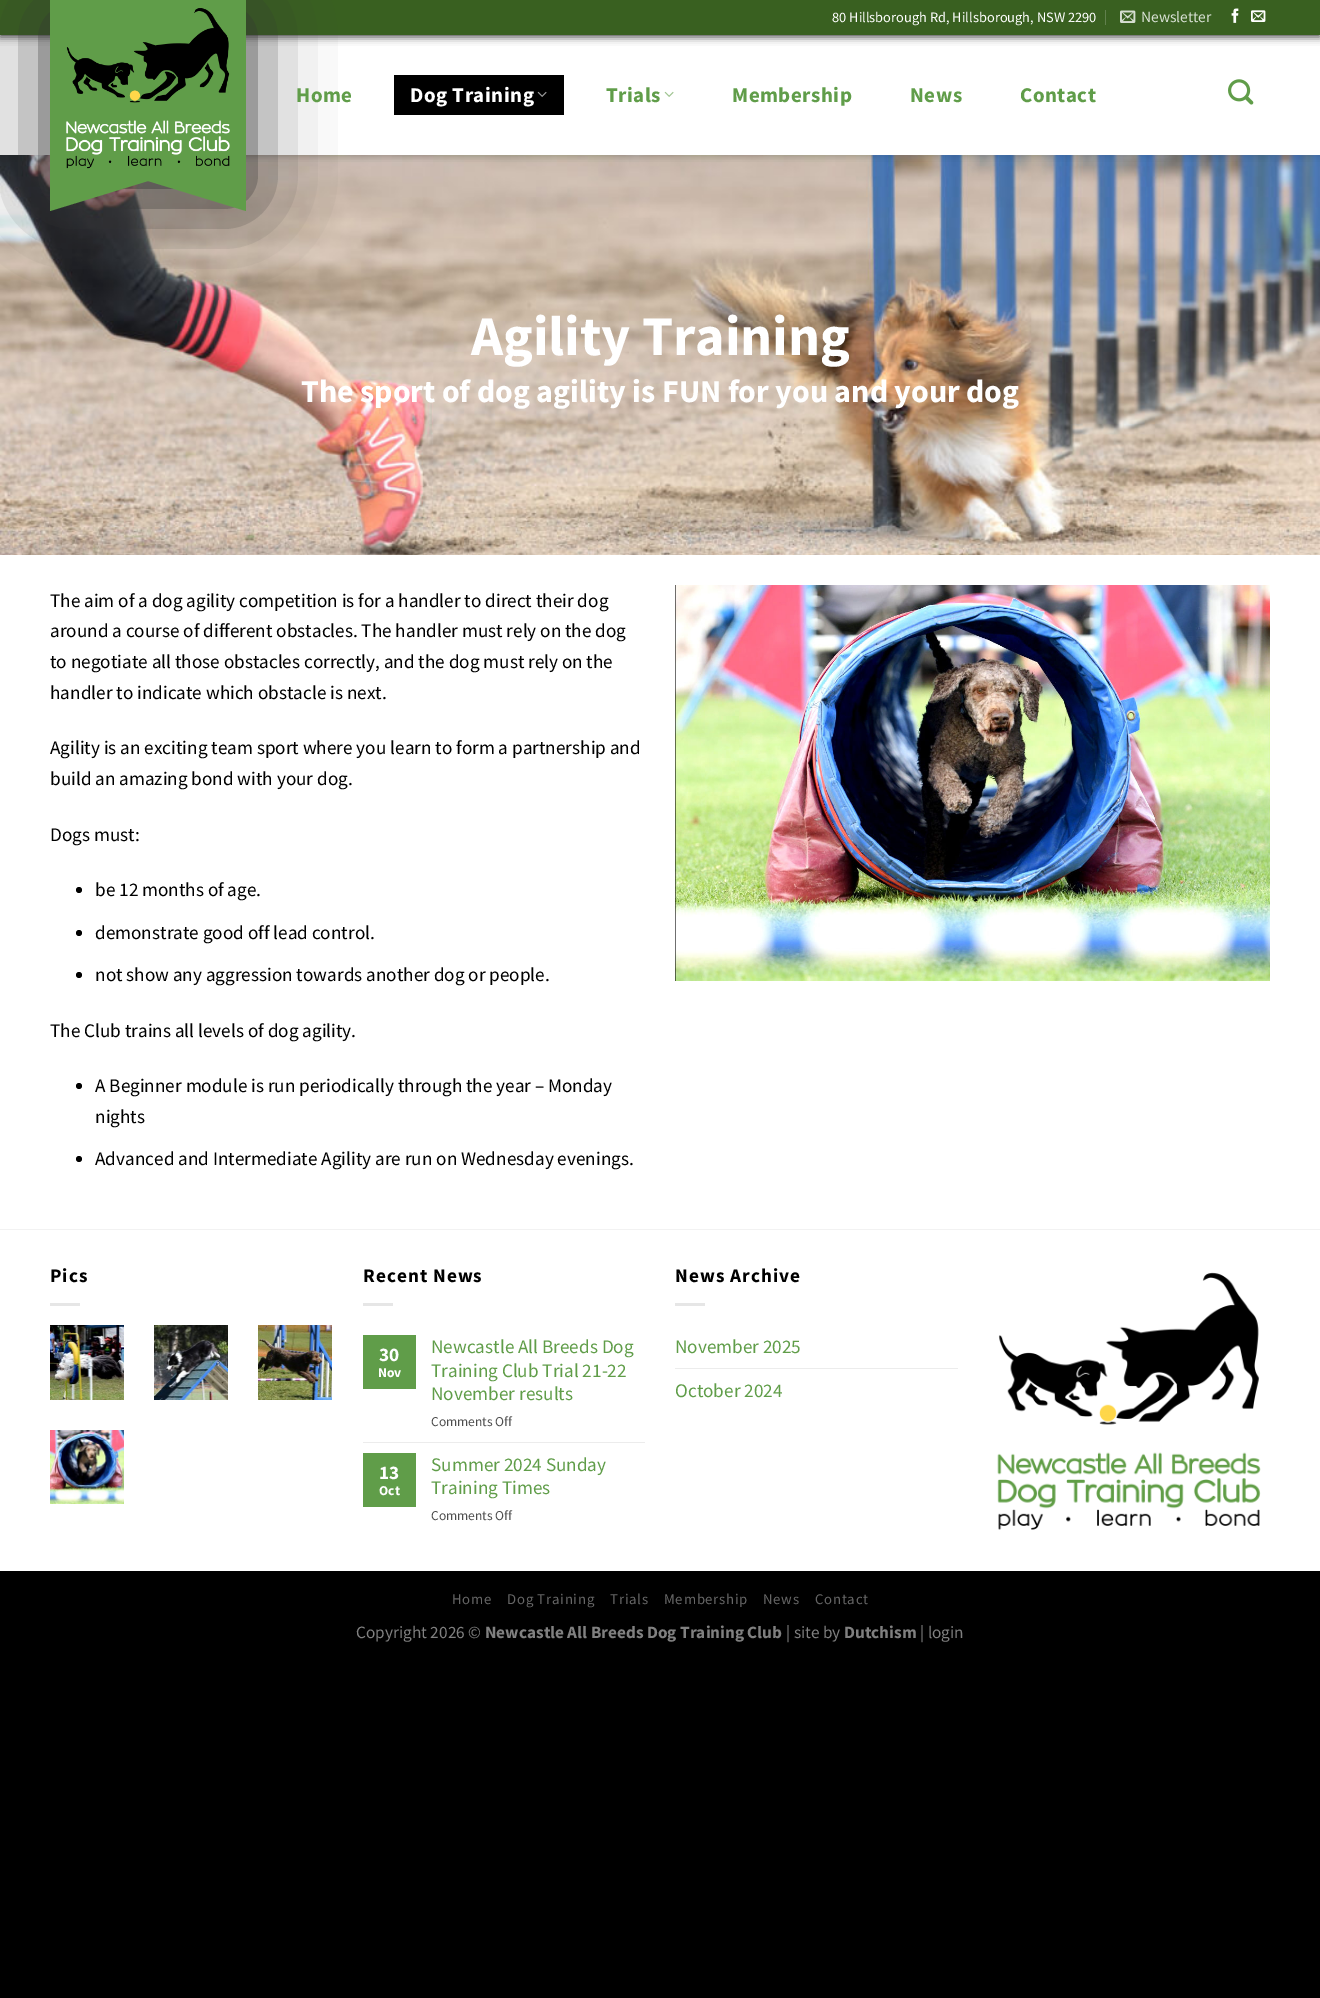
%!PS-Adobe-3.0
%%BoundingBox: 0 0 1320 1998
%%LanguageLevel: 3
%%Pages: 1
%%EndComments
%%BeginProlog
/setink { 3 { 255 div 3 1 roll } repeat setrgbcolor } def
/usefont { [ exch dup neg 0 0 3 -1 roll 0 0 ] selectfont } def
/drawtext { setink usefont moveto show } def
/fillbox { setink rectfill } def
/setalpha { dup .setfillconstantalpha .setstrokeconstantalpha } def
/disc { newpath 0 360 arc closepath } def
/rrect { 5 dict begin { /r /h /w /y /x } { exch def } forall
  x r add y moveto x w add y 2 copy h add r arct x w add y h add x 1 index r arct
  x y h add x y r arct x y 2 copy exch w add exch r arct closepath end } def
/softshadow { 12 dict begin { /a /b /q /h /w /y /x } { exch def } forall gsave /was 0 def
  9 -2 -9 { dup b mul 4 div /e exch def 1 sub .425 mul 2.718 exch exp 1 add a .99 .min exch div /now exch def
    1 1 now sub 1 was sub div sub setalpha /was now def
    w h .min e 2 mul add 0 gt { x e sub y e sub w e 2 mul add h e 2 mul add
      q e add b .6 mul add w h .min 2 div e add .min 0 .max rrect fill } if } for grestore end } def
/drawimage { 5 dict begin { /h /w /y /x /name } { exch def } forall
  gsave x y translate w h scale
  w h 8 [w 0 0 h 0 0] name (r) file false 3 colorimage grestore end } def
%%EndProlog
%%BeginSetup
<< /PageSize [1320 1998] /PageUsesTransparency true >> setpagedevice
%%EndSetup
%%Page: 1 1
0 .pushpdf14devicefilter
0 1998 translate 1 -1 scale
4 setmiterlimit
0 0 1320 1998 0 0 0 fillbox
0 35 1320 1536 255 255 255 fillbox
(assets/img8.rgb) 0 155 1320 400 drawimage
gsave
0 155 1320 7 rectclip
0 0 0 setink
1 1 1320 155 0 5 0.15 softshadow
grestore
68 68 68 setink
0 2 1320 35 0 4 1 softshadow
0 0 1320 35 57 96 32 fillbox
(80 Hillsborough Rd, Hillsborough, NSW 2290) 832 22 /SourceSansPro-Regular 14.4 255 255 255 drawtext
1105 10 1 15 97 128 77 fillbox
(assets/img1.rgb) 1120 10 16 13 drawimage
(Newsletter) 1141 22 /SourceSansPro-Regular 15.5 215 223 210 drawtext
(assets/img2.rgb) 1231 8 8 15 drawimage
(assets/img3.rgb) 1251 10 15 12 drawimage
51 51 51 setink
48 14 200 185 0 40 1 softshadow
50 0 196 181 96 157 73 fillbox
(assets/img4.rgb) 66 8 164 161 drawimage
246 181 moveto 246 211 lineto 148 181 lineto closepath fill
50 211 moveto 50 181 lineto 148 181 lineto closepath fill
/SourceSansPro-Bold 21 usefont
296 102 moveto 0.5 0 (Home) ashow
394 75 170 40 0 0 0 fillbox
255 255 255 setink
410 102 moveto 0.5 0 (Dog Training) ashow
(assets/img5.rgb) 537 91 10 6 drawimage
96 157 73 setink
606 102 moveto 0.5 0 (Trials) ashow
(assets/img6.rgb) 664 91 10 6 drawimage
732 102 moveto 0.5 0 (Membership) ashow
910 102 moveto 0.5 0 (News) ashow
1020 102 moveto 0.5 0 (Contact) ashow
(assets/img7.rgb) 1228 79 26 26 drawimage
(Agility Training) 471 355 /SourceSansPro-Bold 56 255 255 255 drawtext
(The sport of dog agility is FUN for you and your dog) 301 402 /SourceSansPro-Bold 32 255 255 255 drawtext
(The aim of a dog agility competition is for a handler to direct their dog) 50 607 /SourceSansPro-Regular 19.2 0 0 0 drawtext
(around a course of different obstacles. The handler must rely on the dog) 50 637 /SourceSansPro-Regular 19.2 0 0 0 drawtext
(to negotiate all those obstacles correctly, and the dog must rely on the) 50 668 /SourceSansPro-Regular 19.2 0 0 0 drawtext
(handler to indicate which obstacle is next.) 50 699 /SourceSansPro-Regular 19.2 0 0 0 drawtext
(Agility is an exciting team sport where you learn to form a partnership and) 50 754 /SourceSansPro-Regular 19.2 0 0 0 drawtext
(build an amazing bond with your dog.) 50 785 /SourceSansPro-Regular 19.2 0 0 0 drawtext
(Dogs must:) 50 841 /SourceSansPro-Regular 19.2 0 0 0 drawtext
79 890 3 disc fill
(be 12 months of age.) 95 896 /SourceSansPro-Regular 19.2 0 0 0 drawtext
79 933 3 disc fill
(demonstrate good off lead control.) 95 939 /SourceSansPro-Regular 19.2 0 0 0 drawtext
79 975 3 disc fill
(not show any aggression towards another dog or people.) 95 981 /SourceSansPro-Regular 19.2 0 0 0 drawtext
(The Club trains all levels of dog agility.) 50 1037 /SourceSansPro-Regular 19.2 0 0 0 drawtext
79 1086 3 disc fill
(A Beginner module is run periodically through the year – Monday) 95 1092 /SourceSansPro-Regular 19.2 0 0 0 drawtext
(nights) 95 1123 /SourceSansPro-Regular 19.2 0 0 0 drawtext
79 1159 3 disc fill
(Advanced and Intermediate Agility are run on Wednesday evenings.) 95 1165 /SourceSansPro-Regular 19.2 0 0 0 drawtext
(assets/img9.rgb) 675 585 595 396 drawimage
0 1229 1320 1 242 242 242 fillbox
/SourceSansPro-Bold 19.2 usefont
0 0 0 setink
50 1282 moveto 1 0 (Pics) ashow
50 1303 30 3 230 230 230 fillbox
(assets/img10.rgb) 50 1325 74 75 drawimage
(assets/img11.rgb) 154 1325 74 75 drawimage
(assets/img12.rgb) 258 1325 74 75 drawimage
(assets/img13.rgb) 50 1430 74 74 drawimage
0 0 0 setink
363 1282 moveto 1 0 (Recent News) ashow
363 1303 30 3 230 230 230 fillbox
363 1335 53 54 96 157 73 fillbox
(30) 379 1361 /SourceSansPro-Bold 19.2 255 255 255 drawtext
(Nov) 378 1377 /SourceSansPro-Bold 13.5 255 255 255 drawtext
(Newcastle All Breeds Dog) 431 1353 /SourceSansPro-Regular 19.2 96 157 73 drawtext
(Training Club Trial 21-22) 431 1377 /SourceSansPro-Regular 19.2 96 157 73 drawtext
(November results) 431 1400 /SourceSansPro-Regular 19.2 96 157 73 drawtext
(Comments Off) 431 1426 /SourceSansPro-Regular 13.5 77 77 77 drawtext
363 1442 282 1 236 236 236 fillbox
363 1453 53 54 96 157 73 fillbox
(13) 379 1479 /SourceSansPro-Bold 19.2 255 255 255 drawtext
(Oct) 379 1495 /SourceSansPro-Bold 13.5 255 255 255 drawtext
(Summer 2024 Sunday) 431 1471 /SourceSansPro-Regular 19.2 96 157 73 drawtext
(Training Times) 431 1494 /SourceSansPro-Regular 19.2 96 157 73 drawtext
(Comments Off) 431 1520 /SourceSansPro-Regular 13.5 77 77 77 drawtext
/SourceSansPro-Bold 19.2 usefont
0 0 0 setink
675 1282 moveto 1 0 (News Archive) ashow
675 1303 30 3 230 230 230 fillbox
(November 2025) 675 1353 /SourceSansPro-Regular 19.2 96 157 73 drawtext
675 1368 283 1 236 236 236 fillbox
(October 2024) 675 1397 /SourceSansPro-Regular 19.2 96 157 73 drawtext
(assets/img14.rgb) 997 1272 264 258 drawimage
/SourceSansPro-Regular 14.75 usefont
102 102 102 setink
452 1604 moveto 0.75 0 (Home) ashow
507 1604 moveto 0.75 0 (Dog Training) ashow
610 1604 moveto 0.75 0 (Trials) ashow
664 1604 moveto 0.75 0 (Membership) ashow
763 1604 moveto 0.75 0 (News) ashow
815 1604 moveto 0.75 0 (Contact) ashow
(Copyright 2026 ©) 356 1638 /SourceSansPro-Regular 17.25 128 128 128 drawtext
(Newcastle All Breeds Dog Training Club) 485 1638 /SourceSansPro-Bold 17.25 128 128 128 drawtext
(| site by) 786 1638 /SourceSansPro-Regular 17.25 128 128 128 drawtext
(Dutchism) 844 1638 /SourceSansPro-Bold 17.25 128 128 128 drawtext
(| login) 920 1638 /SourceSansPro-Regular 17.25 128 128 128 drawtext
.poppdf14devicefilter showpage
%%EOF
